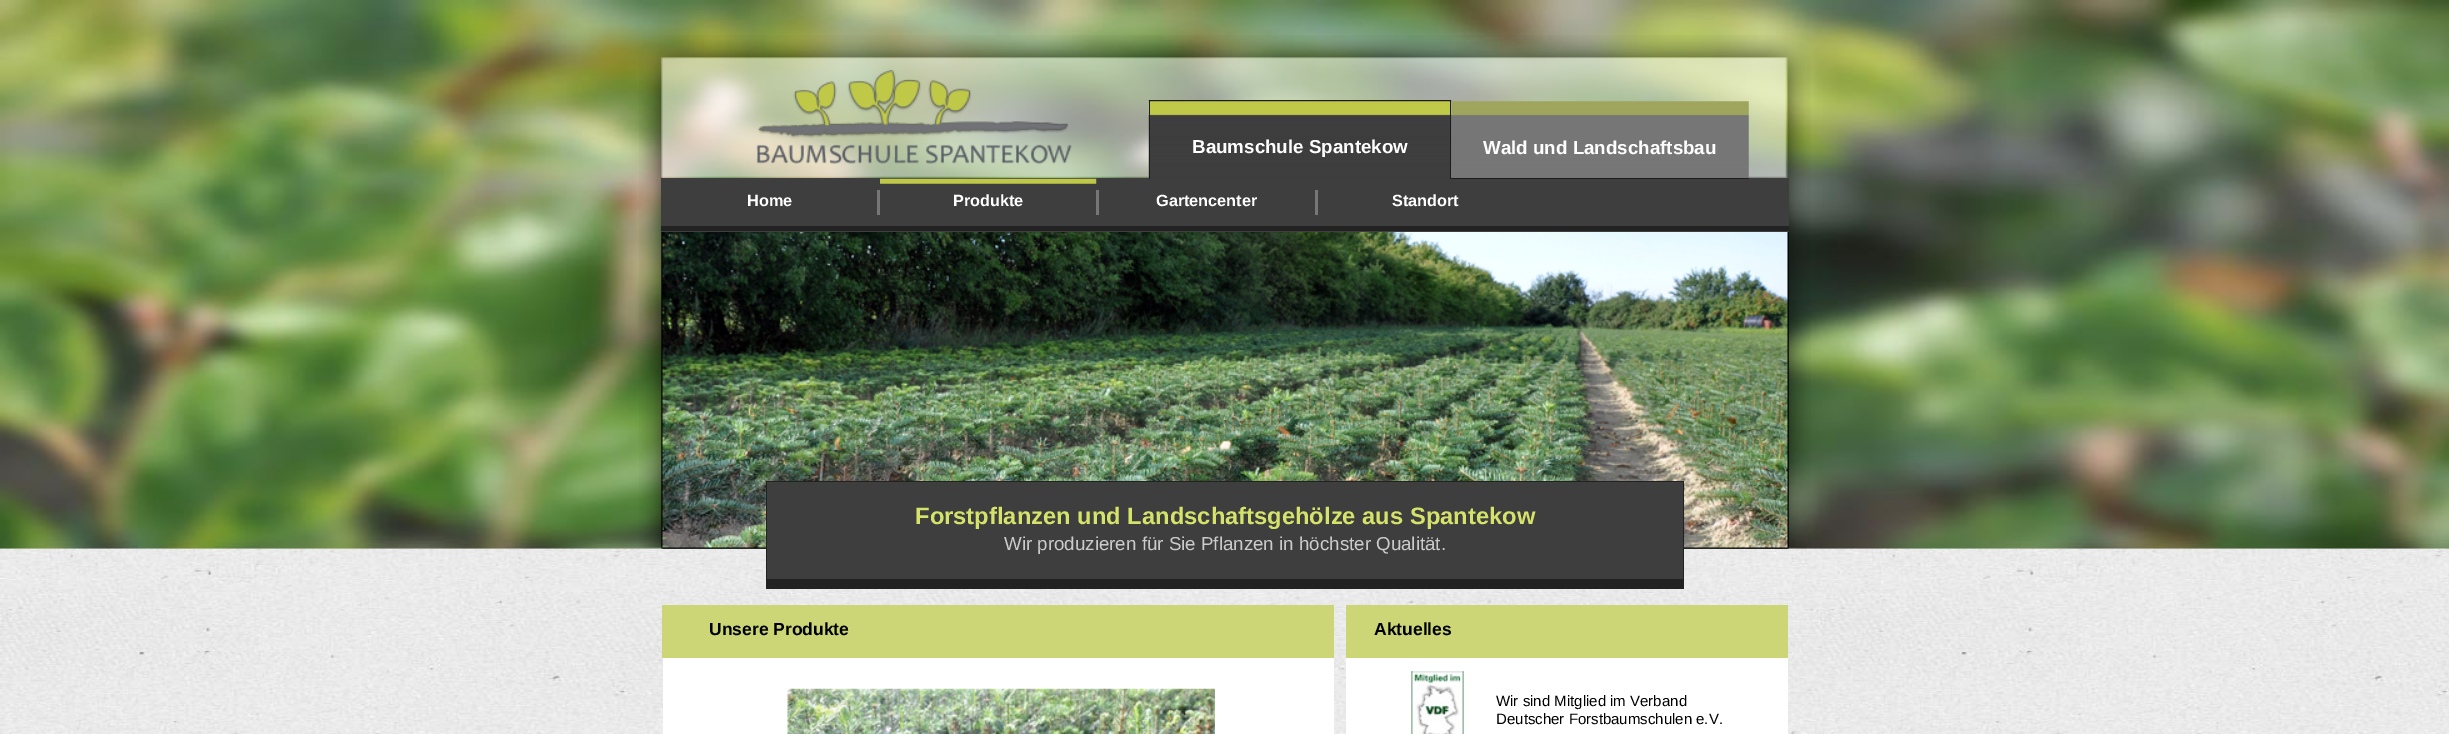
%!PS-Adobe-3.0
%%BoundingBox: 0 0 2449 734
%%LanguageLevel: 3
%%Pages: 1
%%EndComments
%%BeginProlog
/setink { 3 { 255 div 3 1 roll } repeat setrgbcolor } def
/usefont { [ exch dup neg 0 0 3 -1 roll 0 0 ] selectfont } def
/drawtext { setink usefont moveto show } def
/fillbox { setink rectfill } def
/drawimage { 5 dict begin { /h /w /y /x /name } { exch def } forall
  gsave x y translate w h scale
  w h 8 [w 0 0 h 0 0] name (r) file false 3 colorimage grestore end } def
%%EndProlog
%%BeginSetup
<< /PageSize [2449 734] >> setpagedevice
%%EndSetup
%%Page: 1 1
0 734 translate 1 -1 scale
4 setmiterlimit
0 0 2449 734 255 255 255 fillbox
(assets/img1.rgb) 0 548 2449 1 drawimage
(assets/img2.rgb) 0 0 2449 549 drawimage
(assets/img3.rgb) 0 548 2449 186 drawimage
(assets/img4.rgb) 639 35 1172 514 drawimage
(assets/img5.rgb) 661 57 1126 121 drawimage
(assets/img7.rgb) 1451 101 298 77 drawimage
661 178 1128 54 62 62 62 fillbox
1451 178 298 1 28 28 28 fillbox
(assets/img6.rgb) 1148 100 304 79 drawimage
1149 100 302 1 28 28 28 fillbox
1450 100 1 79 28 28 28 fillbox
1149 100 1 79 28 28 28 fillbox
(Baumschule Spantekow) 1192 153 /LiberationSans-Bold 18.75 255 255 255 drawtext
(Wald und Landschaftsbau) 1483 154 /LiberationSans-Bold 18.75 255 255 255 drawtext
661 226 1128 5 34 34 34 fillbox
(Home) 747 206 /LiberationSans-Bold 16.25 255 255 255 drawtext
877 190 3 25 118 118 118 fillbox
(assets/img8.rgb) 880 178 217 6 drawimage
(Produkte) 953 206 /LiberationSans-Bold 16.25 255 255 255 drawtext
1096 190 3 25 118 118 118 fillbox
(Gartencenter) 1156 206 /LiberationSans-Bold 16.25 255 255 255 drawtext
1315 190 3 25 118 118 118 fillbox
(Standort) 1392 206 /LiberationSans-Bold 16.25 255 255 255 drawtext
767 482 916 97 62 62 62 fillbox
766 481 918 1 34 34 34 fillbox
1683 481 1 98 34 34 34 fillbox
767 579 917 10 34 34 34 fillbox
766 481 1 108 34 34 34 fillbox
(Forstpflanzen und Landschaftsgehölze aus Spantekow) 915 524 /LiberationSans-Bold 23.75 213 227 106 drawtext
(Wir produzieren für Sie Pflanzen in höchster Qualität.) 1004 550 /LiberationSans-Regular 18.75 203 203 203 drawtext
663 658 671 76 255 255 255 fillbox
662 605 672 53 204 214 118 fillbox
(Unsere Produkte) 709 635 /LiberationSans-Bold 17.5 0 0 0 drawtext
(assets/img9.rgb) 787 688 428 46 drawimage
1346 658 442 76 255 255 255 fillbox
1346 605 442 53 204 214 118 fillbox
(Aktuelles) 1374 635 /LiberationSans-Bold 17.5 0 0 0 drawtext
(assets/img10.rgb) 1411 671 53 63 drawimage
(Wir sind Mitglied im Verband) 1496 706 /LiberationSans-Regular 15 0 0 0 drawtext
(Deutscher Forstbaumschulen e.V.) 1496 724 /LiberationSans-Regular 15 0 0 0 drawtext
showpage
%%EOF
